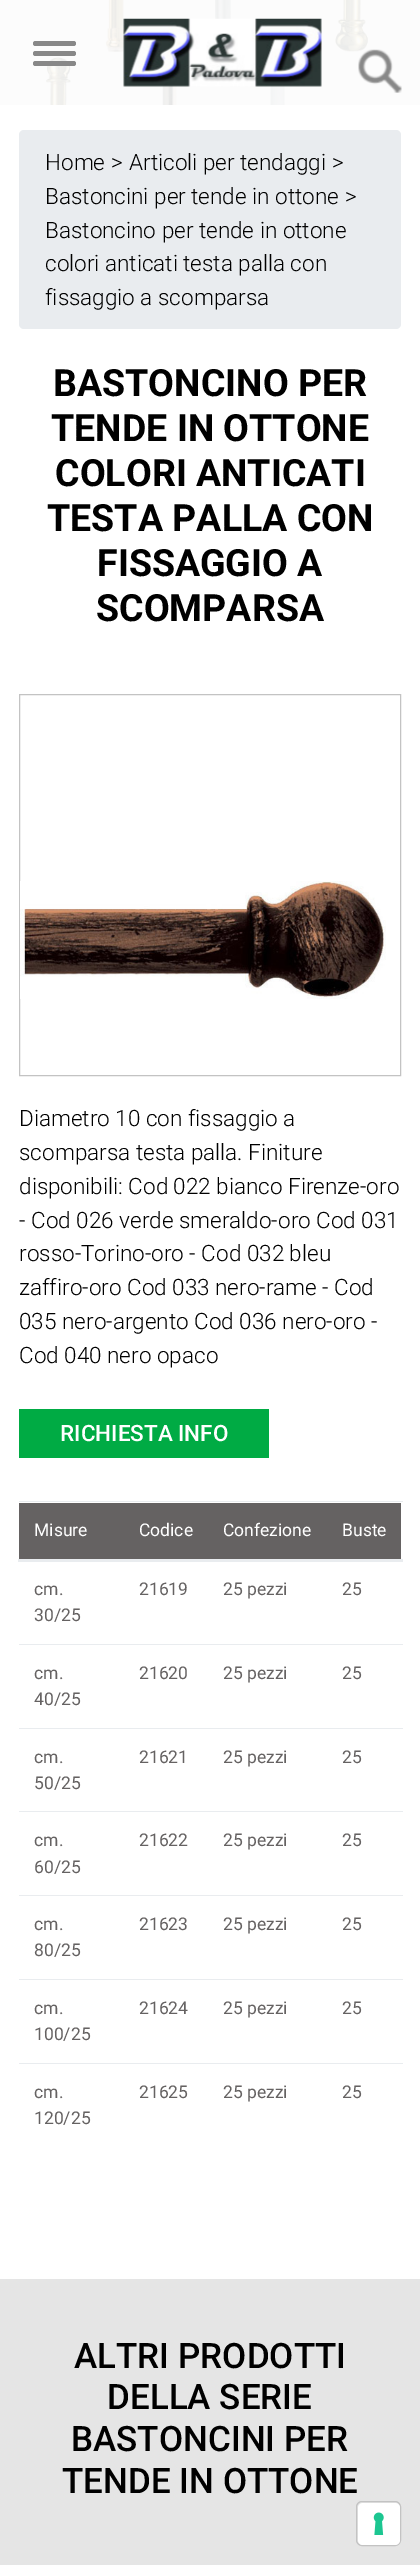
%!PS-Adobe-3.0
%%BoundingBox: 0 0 420 2565
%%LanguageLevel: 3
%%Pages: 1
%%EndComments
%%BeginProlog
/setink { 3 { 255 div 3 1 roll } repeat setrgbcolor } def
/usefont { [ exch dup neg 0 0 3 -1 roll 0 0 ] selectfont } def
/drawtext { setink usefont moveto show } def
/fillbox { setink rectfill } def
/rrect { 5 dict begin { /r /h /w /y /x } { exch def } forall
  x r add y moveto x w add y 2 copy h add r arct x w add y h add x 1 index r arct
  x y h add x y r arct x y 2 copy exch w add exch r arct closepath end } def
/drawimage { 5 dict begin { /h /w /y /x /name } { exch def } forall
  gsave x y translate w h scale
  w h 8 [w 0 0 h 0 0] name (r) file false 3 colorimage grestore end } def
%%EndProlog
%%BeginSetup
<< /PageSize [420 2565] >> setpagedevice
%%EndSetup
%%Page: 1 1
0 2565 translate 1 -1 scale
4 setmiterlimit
0 0 420 2565 255 255 255 fillbox
(assets/img3.rgb) 0 0 420 105 drawimage
136 136 136 setink
33 41 43 5 2.5 rrect fill
33 51 43 5 2.5 rrect fill
33 61 43 5 2.5 rrect fill
(assets/img1.rgb) 123 18 199 69 drawimage
(assets/img2.rgb) 358 49 44 44 drawimage
233 236 239 setink
19 130 382 199 5 rrect fill
(Home) 45 170 /Roboto-Light 22.5 0 0 0 drawtext
(>) 111 170 /Roboto-Light 22.5 0 0 0 drawtext
(Articoli per tendaggi) 129 170 /Roboto-Light 22.5 0 0 0 drawtext
(>) 332 170 /Roboto-Light 22.5 0 0 0 drawtext
(Bastoncini per tende in ottone) 45 204 /Roboto-Light 22.5 0 0 0 drawtext
(>) 345 204 /Roboto-Light 22.5 0 0 0 drawtext
(Bastoncino per tende in ottone) 45 238 /Roboto-Light 22.5 0 0 0 drawtext
(colori anticati testa palla con) 45 271 /Roboto-Light 22.5 0 0 0 drawtext
(fissaggio a scomparsa) 45 305 /Roboto-Light 22.5 0 0 0 drawtext
(BASTONCINO PER) 53 396 /Roboto-Bold 37.5 0 0 0 drawtext
(TENDE IN OTTONE) 51 441 /Roboto-Bold 37.5 0 0 0 drawtext
(COLORI ANTICATI) 55 486 /Roboto-Bold 37.5 0 0 0 drawtext
(TESTA PALLA CON) 47 531 /Roboto-Bold 37.5 0 0 0 drawtext
(FISSAGGIO A) 97 576 /Roboto-Bold 37.5 0 0 0 drawtext
(SCOMPARSA) 96 621 /Roboto-Bold 37.5 0 0 0 drawtext
195 195 195 setink
19.5 694.5 381 381 rectstroke
(assets/img4.rgb) 20 881 366 118 drawimage
(Diametro 10 con fissaggio a) 19 1126 /Roboto-Light 22.5 0 0 0 drawtext
(scomparsa testa palla. Finiture) 19 1160 /Roboto-Light 22.5 0 0 0 drawtext
(disponibili: Cod 022 bianco Firenze-oro) 19 1194 /Roboto-Light 22.5 0 0 0 drawtext
(- Cod 026 verde smeraldo-oro Cod 031) 19 1228 /Roboto-Light 22.5 0 0 0 drawtext
(rosso-Torino-oro - Cod 032 bleu) 19 1261 /Roboto-Light 22.5 0 0 0 drawtext
(zaffiro-oro Cod 033 nero-rame - Cod) 19 1295 /Roboto-Light 22.5 0 0 0 drawtext
(035 nero-argento Cod 036 nero-oro -) 19 1329 /Roboto-Light 22.5 0 0 0 drawtext
(Cod 040 nero opaco) 19 1363 /Roboto-Light 22.5 0 0 0 drawtext
19 1409 250 49 0 171 68 fillbox
(RICHIESTA INFO) 60 1441 /Roboto-Medium 22.5 255 255 255 drawtext
19 1503 382 56 101 98 98 fillbox
(Misure) 34 1536 /Roboto-Regular 17.5 255 255 255 drawtext
(Codice) 139 1536 /Roboto-Regular 17.5 255 255 255 drawtext
(Confezione) 223 1536 /Roboto-Regular 17.5 255 255 255 drawtext
19 1501 384 1 233 236 239 fillbox
18 1559 385 3 233 236 239 fillbox
(Buste) 342 1536 /Roboto-Regular 17.5 255 255 255 drawtext
(cm.) 34 1595 /Roboto-Regular 17.5 101 98 98 drawtext
(30/25) 34 1621 /Roboto-Regular 17.5 101 98 98 drawtext
(21619) 139 1595 /Roboto-Regular 17.5 101 98 98 drawtext
(25 pezzi) 223 1595 /Roboto-Regular 17.5 101 98 98 drawtext
(25) 342 1595 /Roboto-Regular 17.5 101 98 98 drawtext
(cm.) 34 1679 /Roboto-Regular 17.5 101 98 98 drawtext
(40/25) 34 1705 /Roboto-Regular 17.5 101 98 98 drawtext
(21620) 139 1679 /Roboto-Regular 17.5 101 98 98 drawtext
(25 pezzi) 223 1679 /Roboto-Regular 17.5 101 98 98 drawtext
19 1644 384 1 233 236 239 fillbox
(25) 342 1679 /Roboto-Regular 17.5 101 98 98 drawtext
(cm.) 34 1763 /Roboto-Regular 17.5 101 98 98 drawtext
(50/25) 34 1789 /Roboto-Regular 17.5 101 98 98 drawtext
(21621) 139 1763 /Roboto-Regular 17.5 101 98 98 drawtext
(25 pezzi) 223 1763 /Roboto-Regular 17.5 101 98 98 drawtext
19 1728 384 1 233 236 239 fillbox
(25) 342 1763 /Roboto-Regular 17.5 101 98 98 drawtext
(cm.) 34 1846 /Roboto-Regular 17.5 101 98 98 drawtext
(60/25) 34 1873 /Roboto-Regular 17.5 101 98 98 drawtext
(21622) 139 1846 /Roboto-Regular 17.5 101 98 98 drawtext
(25 pezzi) 223 1846 /Roboto-Regular 17.5 101 98 98 drawtext
19 1811 384 1 233 236 239 fillbox
(25) 342 1846 /Roboto-Regular 17.5 101 98 98 drawtext
(cm.) 34 1930 /Roboto-Regular 17.5 101 98 98 drawtext
(80/25) 34 1956 /Roboto-Regular 17.5 101 98 98 drawtext
(21623) 139 1930 /Roboto-Regular 17.5 101 98 98 drawtext
(25 pezzi) 223 1930 /Roboto-Regular 17.5 101 98 98 drawtext
19 1895 384 1 233 236 239 fillbox
(25) 342 1930 /Roboto-Regular 17.5 101 98 98 drawtext
(cm.) 34 2014 /Roboto-Regular 17.5 101 98 98 drawtext
(100/25) 34 2040 /Roboto-Regular 17.5 101 98 98 drawtext
(21624) 139 2014 /Roboto-Regular 17.5 101 98 98 drawtext
(25 pezzi) 223 2014 /Roboto-Regular 17.5 101 98 98 drawtext
19 1979 384 1 233 236 239 fillbox
(25) 342 2014 /Roboto-Regular 17.5 101 98 98 drawtext
(cm.) 34 2098 /Roboto-Regular 17.5 101 98 98 drawtext
(120/25) 34 2124 /Roboto-Regular 17.5 101 98 98 drawtext
(21625) 139 2098 /Roboto-Regular 17.5 101 98 98 drawtext
(25 pezzi) 223 2098 /Roboto-Regular 17.5 101 98 98 drawtext
19 2063 384 1 233 236 239 fillbox
(25) 342 2098 /Roboto-Regular 17.5 101 98 98 drawtext
0 2279 420 286 229 229 229 fillbox
(ALTRI PRODOTTI) 74 2368 /Roboto-Medium 35 0 0 0 drawtext
(DELLA SERIE) 107 2409 /Roboto-Medium 35 0 0 0 drawtext
(BASTONCINI PER) 71 2451 /Roboto-Medium 35 0 0 0 drawtext
(TENDE IN OTTONE) 62 2493 /Roboto-Medium 35 0 0 0 drawtext
195 195 195 setink
356.5 2501.5 44 44 5.5 rrect stroke
255 255 255 setink
358 2503 42 42 5 rrect fill
(assets/img5.rgb) 373 2512 11 23 drawimage
showpage
%%EOF
